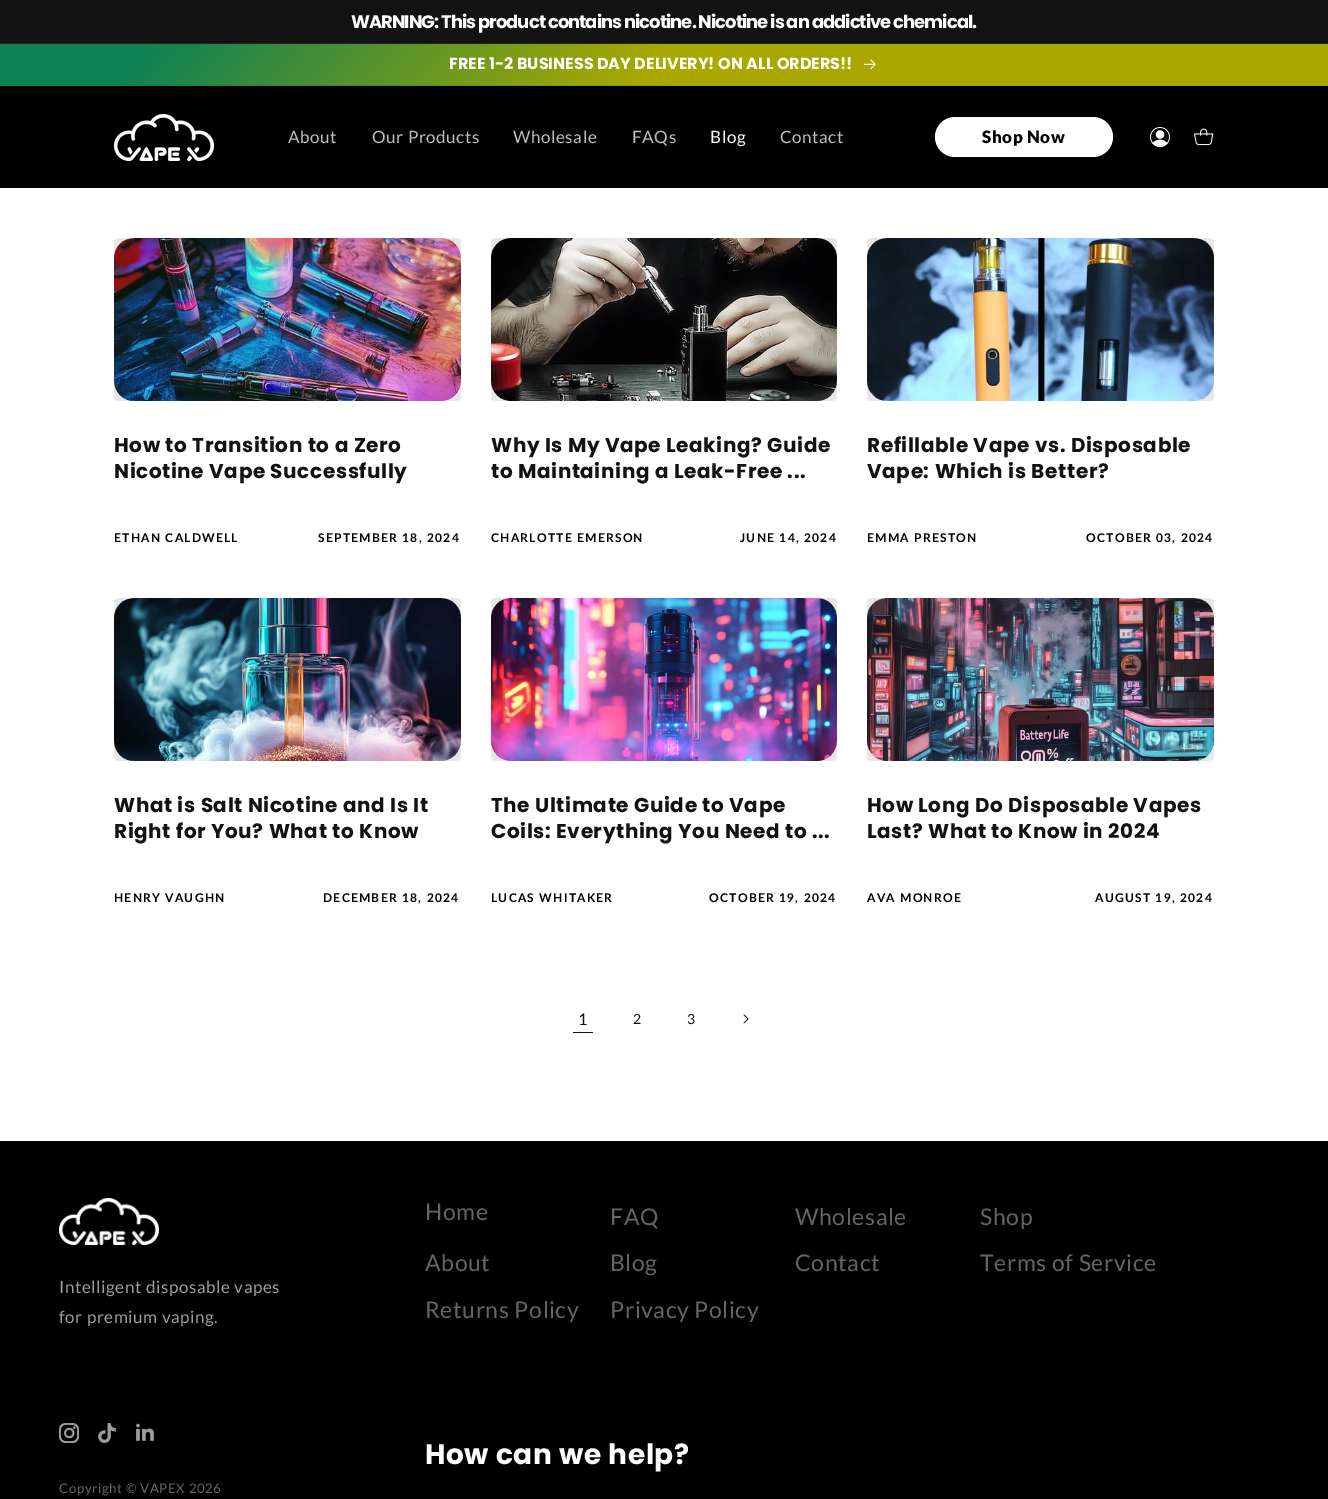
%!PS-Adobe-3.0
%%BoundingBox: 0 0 1328 1499
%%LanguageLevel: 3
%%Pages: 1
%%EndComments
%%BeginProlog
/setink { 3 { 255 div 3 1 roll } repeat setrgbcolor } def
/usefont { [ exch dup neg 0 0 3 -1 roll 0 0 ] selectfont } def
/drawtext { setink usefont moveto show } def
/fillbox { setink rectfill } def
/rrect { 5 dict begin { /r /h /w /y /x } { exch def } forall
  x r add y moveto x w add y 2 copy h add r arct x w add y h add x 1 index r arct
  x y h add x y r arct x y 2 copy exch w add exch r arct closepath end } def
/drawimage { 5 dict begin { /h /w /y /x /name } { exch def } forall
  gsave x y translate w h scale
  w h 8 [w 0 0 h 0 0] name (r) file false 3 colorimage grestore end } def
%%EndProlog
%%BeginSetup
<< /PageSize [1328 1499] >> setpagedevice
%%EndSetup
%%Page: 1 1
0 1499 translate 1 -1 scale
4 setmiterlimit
0 0 1328 1499 255 255 255 fillbox
0 0 1328 43 18 18 18 fillbox
0 43 1328 1 37 37 37 fillbox
/Poppins-Bold 18 usefont
255 255 255 setink
351 28 moveto -1 0 (WARNING: This product contains nicotine. Nicotine is an addictive chemical.) ashow
gsave 0 44 moveto 1328 44 lineto 1328 85 lineto 0 85 lineto closepath clip newpath
<< /ShadingType 2 /ColorSpace /DeviceRGB /Coords [299 -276 1029 405] /Extend [true true] /Function << /FunctionType 3 /Domain [0 1] /Functions [<< /FunctionType 2 /Domain [0 1] /C0 [0.055 0.506 0.329] /C1 [0.055 0.506 0.329] /N 1 >> << /FunctionType 2 /Domain [0 1] /C0 [0.055 0.506 0.329] /C1 [0.663 0.659 0] /N 1 >> << /FunctionType 2 /Domain [0 1] /C0 [0.663 0.659 0] /C1 [0.663 0.659 0] /N 1 >> << /FunctionType 2 /Domain [0 1] /C0 [0.663 0.659 0] /C1 [0.663 0.659 0] /N 1 >>] /Bounds [0.11 0.49 0.87] /Encode [0 1 0 1 0 1 0 1] >> >> shfill grestore
gsave 0 85 moveto 1328 85 lineto 1328 86 lineto 0 86 lineto closepath clip newpath
<< /ShadingType 2 /ColorSpace /DeviceRGB /Coords [299 -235 1029 446] /Extend [true true] /Function << /FunctionType 3 /Domain [0 1] /Functions [<< /FunctionType 2 /Domain [0 1] /C0 [0.055 0.471 0.31] /C1 [0.055 0.471 0.31] /N 1 >> << /FunctionType 2 /Domain [0 1] /C0 [0.055 0.471 0.31] /C1 [0.616 0.612 0.004] /N 1 >> << /FunctionType 2 /Domain [0 1] /C0 [0.616 0.612 0.004] /C1 [0.616 0.612 0.004] /N 1 >> << /FunctionType 2 /Domain [0 1] /C0 [0.616 0.612 0.004] /C1 [0.616 0.612 0.004] /N 1 >>] /Bounds [0.11 0.49 0.87] /Encode [0 1 0 1 0 1 0 1] >> >> shfill grestore
(FREE 1-2 BUSINESS DAY DELIVERY! ON ALL ORDERS!!) 449 69 /Poppins-Bold 16 255 255 255 drawtext
(assets/img1.rgb) 864 59 12 10 drawimage
0 86 1328 102 0 0 0 fillbox
(assets/img2.rgb) 114 114 100 47 drawimage
/Lato-Regular 17 usefont
191 191 191 setink
288 143 moveto 0.6 0 (About) ashow
372 143 moveto 0.6 0 (Our Products) ashow
513 143 moveto 0.6 0 (Wholesale) ashow
632 143 moveto 0.6 0 (FAQs) ashow
255 255 255 setink
710 143 moveto 0.6 0 (Blog) ashow
191 191 191 setink
780 143 moveto 0.6 0 (Contact) ashow
255 255 255 setink
935 117 178 40 20 rrect fill
/Lato-Black 17 usefont
0 0 0 setink
982 143 moveto 0.6 0 (Shop Now) ashow
(assets/img3.rgb) 1150 127 20 20 drawimage
(assets/img4.rgb) 1194 128 20 18 drawimage
231 231 231 setink
114 238 347 163 4 rrect fill
(assets/img5.rgb) 114 238 347 163 drawimage
/Poppins-Bold 20 usefont
18 18 18 setink
114 452 moveto 0.6 0 (How to Transition to a Zero) ashow
114 478 moveto 0.6 0 (Nicotine Vape Successfully) ashow
/Lato-Bold 12 usefont
0 0 0 setink
114 542 moveto 1.25 0 (ETHAN CALDWELL) ashow
318 542 moveto 1.25 0 (SEPTEMBER 18, 2024) ashow
231 231 231 setink
491 238 346 163 4 rrect fill
(assets/img6.rgb) 491 238 346 163 drawimage
/Poppins-Bold 20 usefont
18 18 18 setink
491 452 moveto 0.6 0 (Why Is My Vape Leaking? Guide) ashow
491 478 moveto 0.6 0 (to Maintaining a Leak-Free ...) ashow
/Lato-Bold 12 usefont
0 0 0 setink
491 542 moveto 1.25 0 (CHARLOTTE EMERSON) ashow
740 542 moveto 1.25 0 (JUNE 14, 2024) ashow
231 231 231 setink
867 238 347 163 4 rrect fill
(assets/img7.rgb) 867 238 347 163 drawimage
/Poppins-Bold 20 usefont
18 18 18 setink
867 452 moveto 0.6 0 (Refillable Vape vs. Disposable) ashow
867 478 moveto 0.6 0 (Vape: Which is Better?) ashow
/Lato-Bold 12 usefont
0 0 0 setink
867 542 moveto 1.25 0 (EMMA PRESTON) ashow
1086 542 moveto 1.25 0 (OCTOBER 03, 2024) ashow
231 231 231 setink
114 598 347 163 4 rrect fill
(assets/img8.rgb) 114 598 347 163 drawimage
/Poppins-Bold 20 usefont
18 18 18 setink
114 812 moveto 0.6 0 (What is Salt Nicotine and Is It) ashow
114 838 moveto 0.6 0 (Right for You? What to Know) ashow
/Lato-Bold 12 usefont
0 0 0 setink
114 902 moveto 1.25 0 (HENRY VAUGHN) ashow
323 902 moveto 1.25 0 (DECEMBER 18, 2024) ashow
231 231 231 setink
491 598 346 163 4 rrect fill
(assets/img9.rgb) 491 598 346 163 drawimage
/Poppins-Bold 20 usefont
18 18 18 setink
491 812 moveto 0.6 0 (The Ultimate Guide to Vape) ashow
491 838 moveto 0.6 0 (Coils: Everything You Need to ...) ashow
/Lato-Bold 12 usefont
0 0 0 setink
491 902 moveto 1.25 0 (LUCAS WHITAKER) ashow
709 902 moveto 1.25 0 (OCTOBER 19, 2024) ashow
231 231 231 setink
867 598 347 163 4 rrect fill
(assets/img10.rgb) 867 598 347 163 drawimage
/Poppins-Bold 20 usefont
18 18 18 setink
867 812 moveto 0.6 0 (How Long Do Disposable Vapes) ashow
867 838 moveto 0.6 0 (Last? What to Know in 2024) ashow
/Lato-Bold 12 usefont
0 0 0 setink
867 902 moveto 1.25 0 (AVA MONROE) ashow
1095 902 moveto 1.25 0 (AUGUST 19, 2024) ashow
/Lato-Regular 16 usefont
18 18 18 setink
578 1025 moveto 0.6 0 (1) ashow
573 1032 20 1 18 18 18 fillbox
/Lato-Regular 14 usefont
633 1024 moveto 0.6 0 (2) ashow
687 1024 moveto 0.6 0 (3) ashow
(assets/img11.rgb) 743 1014 6 10 drawimage
0 1141 1328 358 0 0 0 fillbox
/Lato-Regular 23 usefont
101 101 101 setink
425 1220 moveto 0.6 0 (Home) ashow
610 1225 moveto 0.6 0 (FAQ) ashow
795 1225 moveto 0.6 0 (Wholesale) ashow
980 1225 moveto 0.6 0 (Shop) ashow
425 1271 moveto 0.6 0 (About) ashow
610 1271 moveto 0.6 0 (Blog) ashow
795 1271 moveto 0.6 0 (Contact) ashow
980 1271 moveto 0.6 0 (Terms of Service) ashow
425 1318 moveto 0.6 0 (Returns Policy) ashow
610 1318 moveto 0.6 0 (Privacy Policy) ashow
(assets/img12.rgb) 59 1198 100 47 drawimage
/Lato-Regular 17 usefont
156 156 156 setink
59 1293 moveto 0.6 0 (Intelligent disposable vapes) ashow
59 1323 moveto 0.6 0 (for premium vaping.) ashow
(assets/img13.rgb) 59 1423 20 20 drawimage
(assets/img14.rgb) 98 1423 18 20 drawimage
(assets/img15.rgb) 136 1423 18 18 drawimage
/Lato-Regular 13.25 usefont
101 101 101 setink
59 1493 moveto 0.6 0 (Copyright © VAPEX 2026) ashow
/Poppins-Bold 28 usefont
255 255 255 setink
425 1464 moveto 0.6 0 (How can we help?) ashow
showpage
%%EOF
